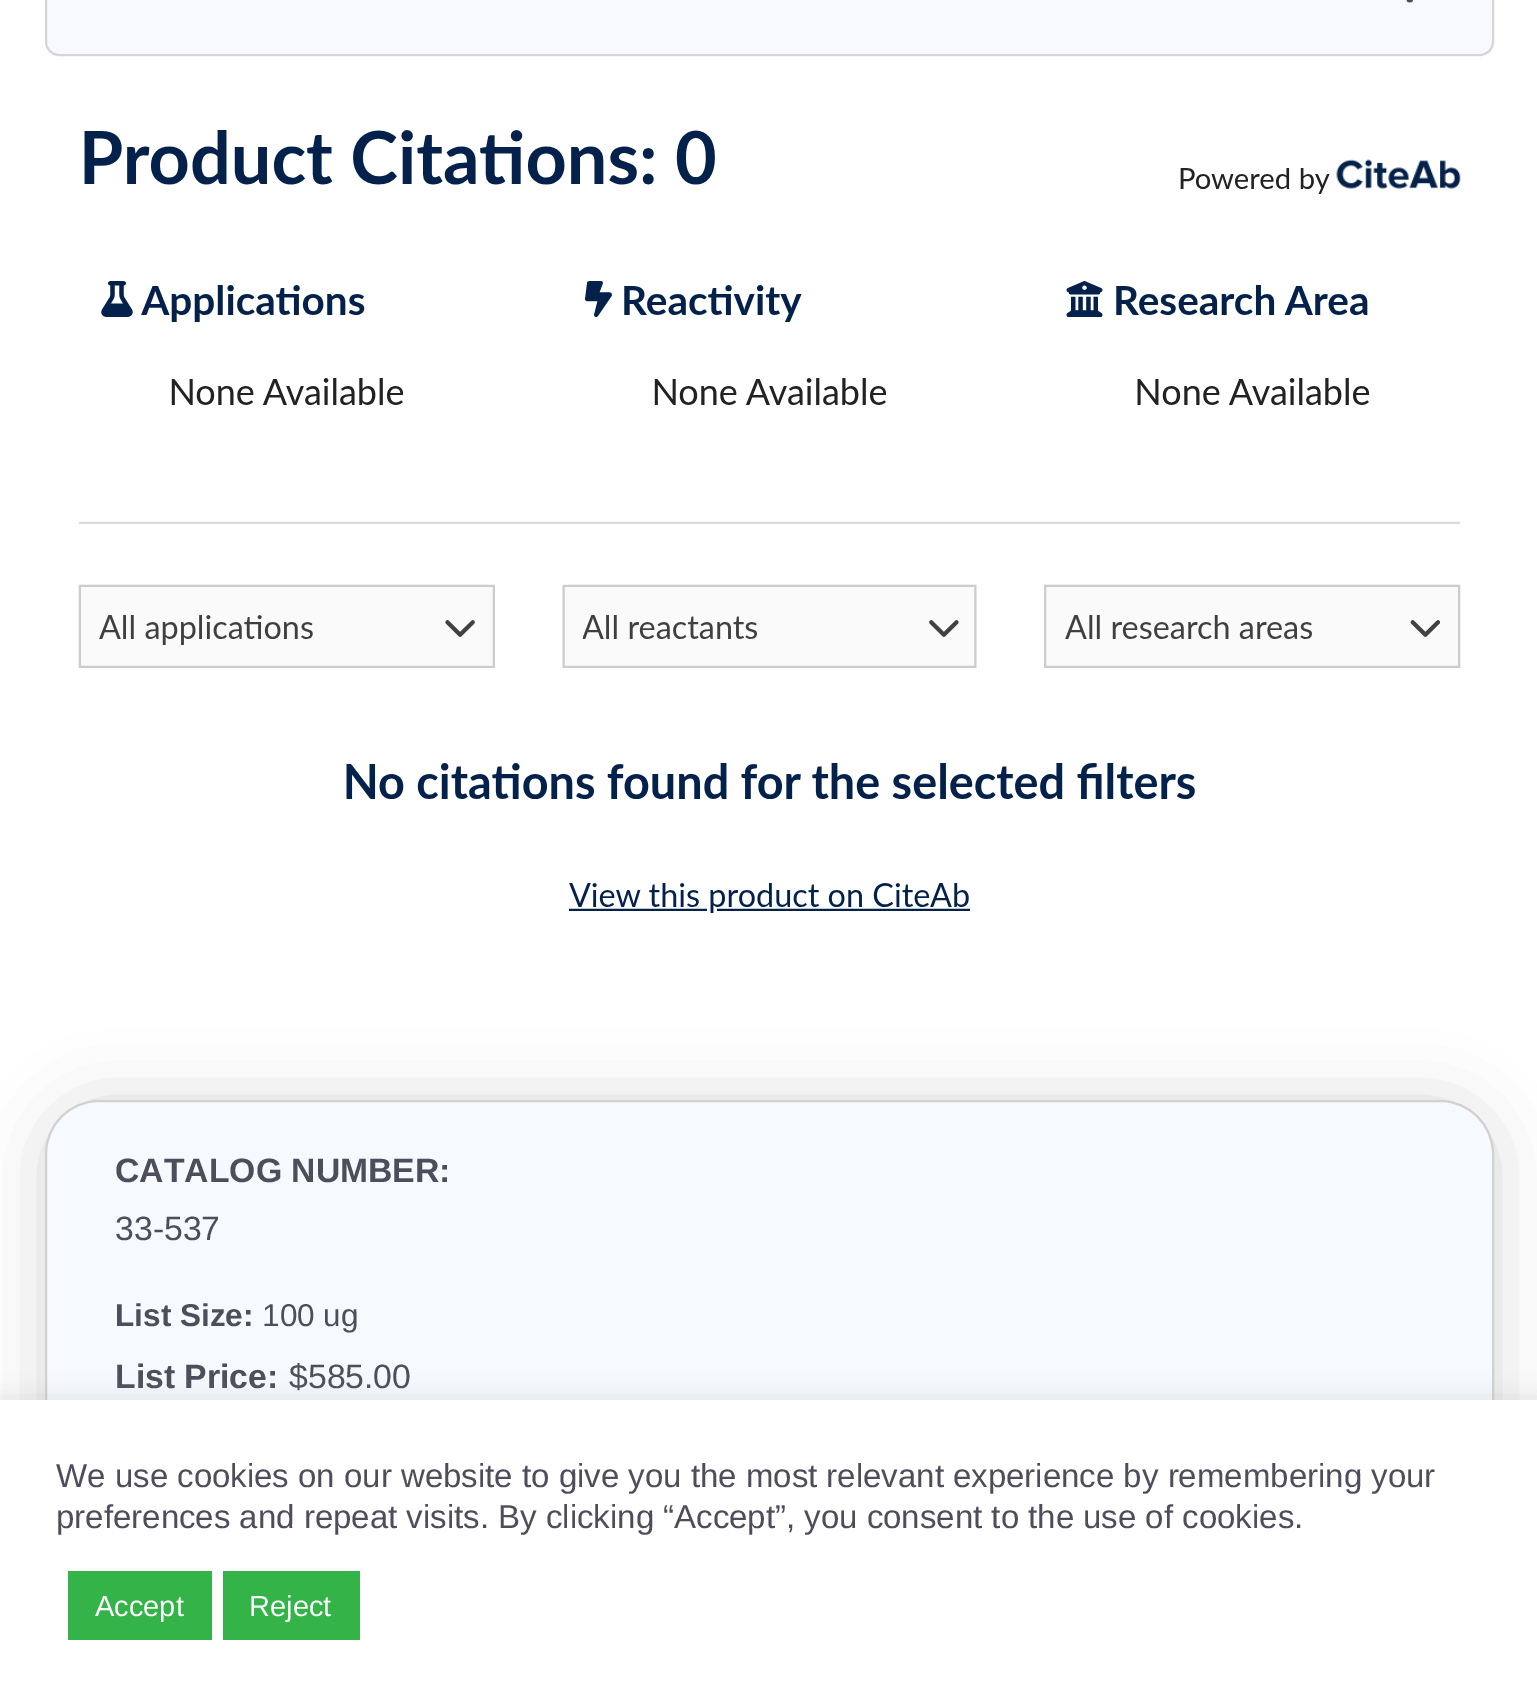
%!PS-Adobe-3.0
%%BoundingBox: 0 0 1537 1706
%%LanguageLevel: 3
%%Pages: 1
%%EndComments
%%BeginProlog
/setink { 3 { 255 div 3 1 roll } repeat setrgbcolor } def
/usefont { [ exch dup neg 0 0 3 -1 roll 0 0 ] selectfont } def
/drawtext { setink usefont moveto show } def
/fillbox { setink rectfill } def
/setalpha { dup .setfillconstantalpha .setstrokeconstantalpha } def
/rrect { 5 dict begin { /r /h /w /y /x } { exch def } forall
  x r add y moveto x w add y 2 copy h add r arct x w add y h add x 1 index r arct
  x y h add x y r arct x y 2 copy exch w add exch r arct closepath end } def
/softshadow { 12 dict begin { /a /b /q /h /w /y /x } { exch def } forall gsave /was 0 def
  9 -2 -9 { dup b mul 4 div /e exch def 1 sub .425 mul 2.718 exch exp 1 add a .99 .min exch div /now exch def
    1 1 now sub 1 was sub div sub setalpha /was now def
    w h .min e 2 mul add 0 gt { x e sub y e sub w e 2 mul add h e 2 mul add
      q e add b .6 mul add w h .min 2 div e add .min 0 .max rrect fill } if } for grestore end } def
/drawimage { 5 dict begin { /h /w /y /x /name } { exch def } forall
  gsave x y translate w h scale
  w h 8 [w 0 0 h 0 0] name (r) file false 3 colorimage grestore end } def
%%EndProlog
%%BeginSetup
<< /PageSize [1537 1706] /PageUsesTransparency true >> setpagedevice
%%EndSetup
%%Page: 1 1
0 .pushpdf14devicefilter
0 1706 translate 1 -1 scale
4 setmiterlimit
0 0 1537 1706 255 255 255 fillbox
247 249 254 setink
46 -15 1447 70 13 rrect gsave fill grestore
213 213 213 setink
2 setlinewidth
stroke
(assets/img1.rgb) 1406 0 7 3 drawimage
(assets/img2.rgb) 78 130 1383 783 drawimage
0 0 0 setink
45 1103 1449 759 54 34 0.16 softshadow
246 249 254 setink
46 1101 1447 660 53 rrect gsave fill grestore
209 209 209 setink
stroke
(CATALOG NUMBER:) 115 1182 /LiberationSans-Bold 33.75 78 77 91 drawtext
(33-537) 115 1240 /LiberationSans-Regular 33.75 78 77 91 drawtext
(List Size:) 115 1326 /LiberationSans-Bold 31.5 78 77 91 drawtext
(100 ug) 262 1326 /LiberationSans-Regular 31.5 78 77 91 drawtext
(List Price:) 115 1388 /LiberationSans-Bold 33.75 78 77 91 drawtext
($585.00) 289 1388 /LiberationSans-Regular 33.75 78 77 91 drawtext
172 171 171 setink
0 1397 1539 309 0 11 0.3 softshadow
0 1400 1537 306 255 255 255 fillbox
(We use cookies on our website to give you the most relevant experience by remembering your) 56 1487 /LiberationSans-Regular 33 78 77 91 drawtext
(preferences and repeat visits. By clicking “Accept”, you consent to the use of cookies.) 56 1528 /LiberationSans-Regular 33 78 77 91 drawtext
68 1571 144 69 52 179 73 fillbox
(Accept) 95 1616 /LiberationSans-Regular 29 255 255 255 drawtext
223 1571 137 69 52 179 73 fillbox
(Reject) 249 1616 /LiberationSans-Regular 29 255 255 255 drawtext
.poppdf14devicefilter showpage
%%EOF
